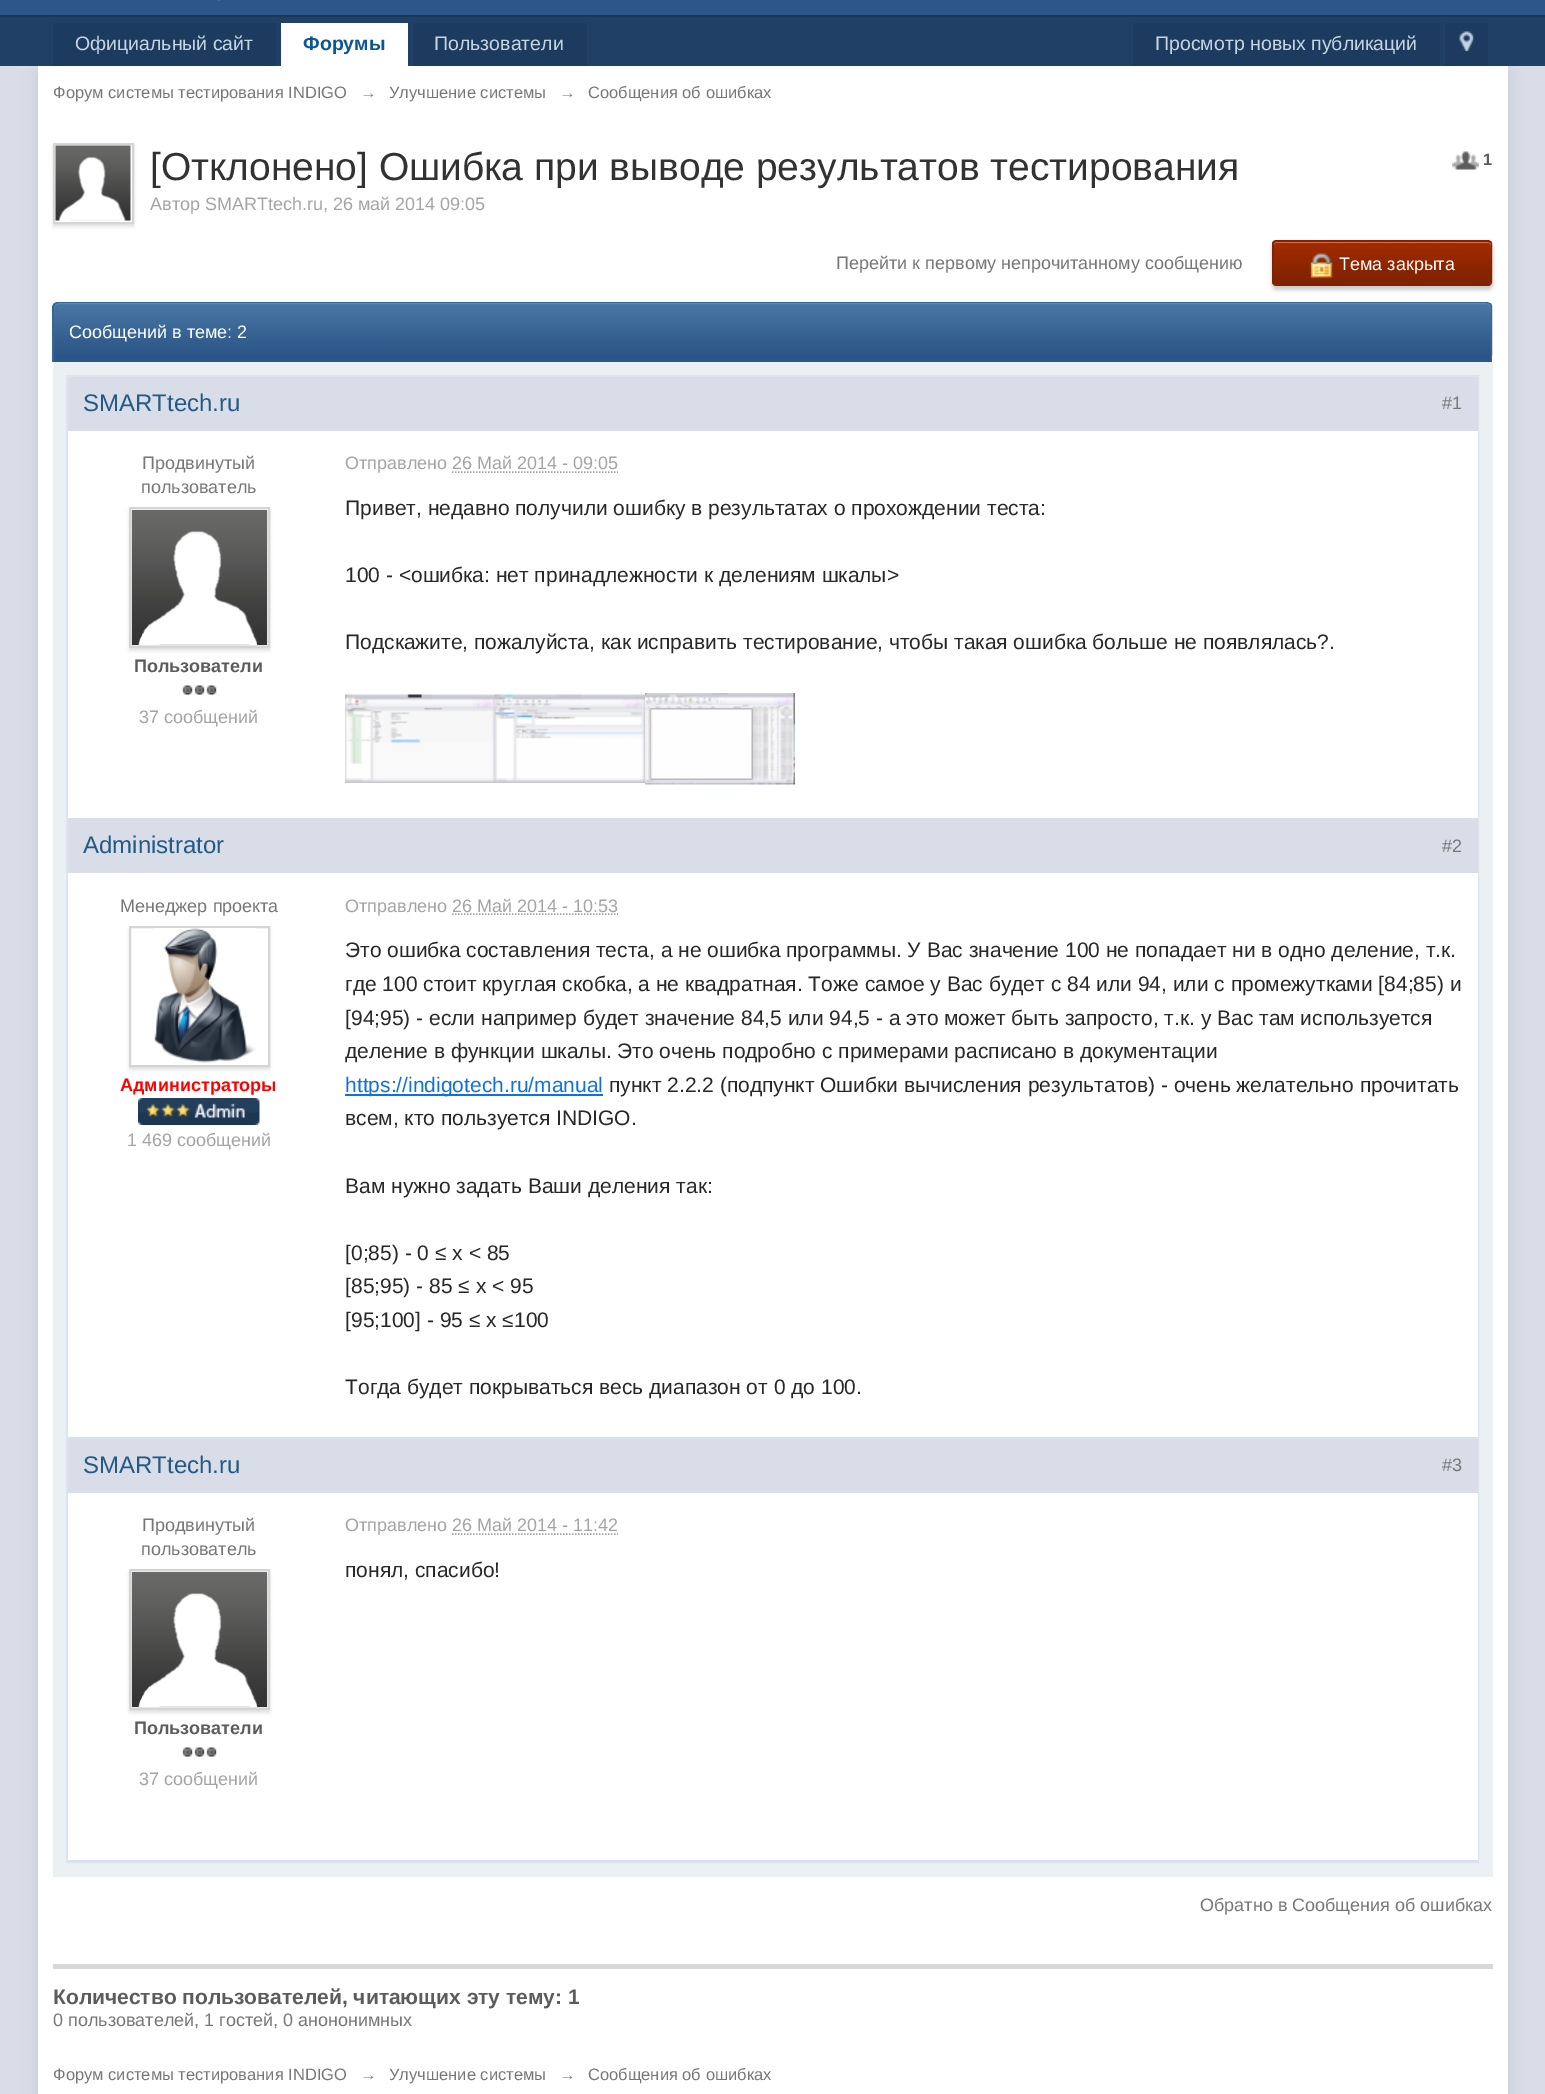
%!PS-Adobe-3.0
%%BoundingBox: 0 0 1545 2094
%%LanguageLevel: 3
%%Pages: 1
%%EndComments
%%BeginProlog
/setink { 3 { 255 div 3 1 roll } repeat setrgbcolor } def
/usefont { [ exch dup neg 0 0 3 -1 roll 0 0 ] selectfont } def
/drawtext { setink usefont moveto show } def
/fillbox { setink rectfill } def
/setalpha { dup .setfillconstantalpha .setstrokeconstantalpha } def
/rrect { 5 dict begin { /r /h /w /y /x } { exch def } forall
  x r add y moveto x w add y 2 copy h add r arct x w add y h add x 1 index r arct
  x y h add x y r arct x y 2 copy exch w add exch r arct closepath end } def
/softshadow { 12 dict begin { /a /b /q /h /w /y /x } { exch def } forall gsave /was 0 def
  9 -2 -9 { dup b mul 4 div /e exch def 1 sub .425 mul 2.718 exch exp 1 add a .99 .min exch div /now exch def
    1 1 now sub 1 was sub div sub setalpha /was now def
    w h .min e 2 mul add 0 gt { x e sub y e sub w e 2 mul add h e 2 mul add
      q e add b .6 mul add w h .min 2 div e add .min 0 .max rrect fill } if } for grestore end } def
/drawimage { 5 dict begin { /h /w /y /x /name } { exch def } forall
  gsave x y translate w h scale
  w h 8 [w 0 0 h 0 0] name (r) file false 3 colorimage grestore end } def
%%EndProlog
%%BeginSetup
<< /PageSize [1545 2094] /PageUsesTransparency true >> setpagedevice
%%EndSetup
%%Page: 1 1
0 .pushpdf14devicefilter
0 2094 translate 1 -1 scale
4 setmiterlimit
0 0 1545 2094 216 221 232 fillbox
0 0 1545 15 45 87 136 fillbox
0 15 1545 2 27 55 89 fillbox
(assets/img1.rgb) 217 0 4 1 drawimage
0 17 1545 49 32 64 102 fillbox
0 0 0 setink
38 74 1470 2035 0 7 0.1 softshadow
53 23 223 43 28 59 95 fillbox
(Официальный сайт) 75 50 /LiberationSans-Regular 19.5 197 213 226 drawtext
281 23 127 43 255 255 255 fillbox
(Форумы) 303 50 /LiberationSans-Bold 19.5 11 87 148 drawtext
413 23 174 43 28 59 95 fillbox
(Пользователи) 434 50 /LiberationSans-Regular 19.5 197 213 226 drawtext
1133 23 307 43 28 59 95 fillbox
(Просмотр новых публикаций) 1155 50 /LiberationSans-Regular 19.5 197 213 226 drawtext
1445 23 43 43 28 59 95 fillbox
(assets/img2.rgb) 1459 31 15 20 drawimage
38 66 1470 2028 255 255 255 fillbox
(Форум системы тестирования INDIGO) 53 98 /LiberationSans-Regular 16.5 119 119 119 drawtext
(→) 360 98 /LiberationSans-Regular 16.5 119 119 119 drawtext
(Улучшение системы) 389 98 /LiberationSans-Regular 16.5 119 119 119 drawtext
(→) 559 98 /LiberationSans-Regular 16.5 119 119 119 drawtext
(Сообщения об ошибках) 588 98 /LiberationSans-Regular 16.5 119 119 119 drawtext
0 0 0 setink
53 146 81 81 0 1.5 0.1 softshadow
255 255 255 setink
54 144 moveto 133 144 lineto 133 223 lineto 54 223 lineto closepath gsave fill grestore
213 213 213 setink
2 setlinewidth
stroke
(assets/img3.rgb) 55 145 76 76 drawimage
([Отклонено] Ошибка при выводе результатов тестирования) 150 180 /LiberationSans-Regular 39 50 50 50 drawtext
(Автор SMARTtech.ru, 26 май 2014 09:05) 150 210 /LiberationSans-Regular 18 164 164 164 drawtext
(assets/img4.rgb) 1452 151 27 19 drawimage
(1) 1483 165 /LiberationSans-Bold 16.5 92 92 92 drawtext
(Перейти к первому непрочитанному сообщению) 836 269 /LiberationSans-Regular 18 119 119 119 drawtext
0 0 0 setink
1272 243 221 47 5 2 0.2 softshadow
129 34 0 setink
1276 242 moveto 1488 242 lineto 1490 242 1491 243 1491 244 curveto 1491 282 lineto 1491 284 1490 286 1488 286 curveto 1276 286 lineto 1275 286 1274 284 1274 282 curveto 1274 244 lineto 1274 243 1275 242 1276 242 curveto closepath fill
(assets/img5.rgb) 1272 241 221 43 drawimage
219 110 70 setink
1276 243 moveto 1488 243 lineto 1490 243 1491 244 1491 246 curveto 1491 244 lineto 1491 243 1490 242 1488 242 curveto 1276 242 lineto 1275 242 1274 243 1274 244 curveto 1274 282 lineto 1274 285 lineto 1274 252 lineto 1274 249 1273 243 1276 243 curveto closepath fill
129 34 0 setink
1276 240 moveto 1488 240 lineto 1490 240 1492 242 1492 244 curveto 1492 282 lineto 1492 284 1490 286 1488 286 curveto 1276 286 lineto 1274 286 1272 284 1272 282 curveto 1272 244 lineto 1272 242 1274 240 1276 240 curveto closepath 1276 242 moveto 1488 242 lineto 1490 242 1491 243 1491 244 curveto 1491 282 lineto 1491 284 1490 286 1488 286 curveto 1276 286 lineto 1275 286 1274 284 1274 282 curveto 1274 244 lineto 1274 243 1275 242 1276 242 curveto closepath eofill
(assets/img6.rgb) 1310 253 23 25 drawimage
(Тема закрыта) 1339 270 /LiberationSans-Regular 18 255 255 255 drawtext
44 86 135 setink
59 303 moveto 1486 303 lineto 1489 303 1491 305 1491 308 curveto 1491 362 lineto 54 362 lineto 54 308 lineto 54 305 56 303 59 303 curveto closepath fill
(assets/img7.rgb) 52 303 1441 53 drawimage
82 140 188 setink
58 304 moveto 1486 304 lineto 1489 304 1491 307 1491 309 curveto 1491 306 1489 303 1486 303 curveto 59 303 lineto 56 303 54 306 54 309 curveto 54 307 56 304 58 304 curveto closepath fill
49 104 151 setink
58 302 moveto 1486 302 lineto 1490 302 1492 304 1492 308 curveto 1492 362 lineto 52 362 lineto 52 308 lineto 52 304 55 302 58 302 curveto closepath 58 303 moveto 1486 303 lineto 1489 303 1491 305 1491 308 curveto 1491 362 lineto 54 362 lineto 54 308 lineto 54 305 56 303 58 303 curveto closepath eofill
(Сообщений в теме: 2) 69 338 /LiberationSans-Regular 18 255 255 255 drawtext
53 362 1440 1515 235 240 243 fillbox
219 228 239 setink
67 376 1411 1486 rectstroke
68 431 1410 387 255 255 255 fillbox
68 818 1410 1 214 226 235 fillbox
68 377 1410 54 216 221 232 fillbox
(SMARTtech.ru) 83 411 /LiberationSans-Regular 24 34 89 133 drawtext
(#1) 1442 409 /LiberationSans-Regular 18 119 119 119 drawtext
(Продвинутый) 142 469 /LiberationSans-Regular 18 119 119 119 drawtext
(пользователь) 141 493 /LiberationSans-Regular 18 119 119 119 drawtext
0 0 0 setink
129 510 141 141 0 1.5 0.1 softshadow
213 213 213 setink
130 508 139 139 rectstroke
(assets/img8.rgb) 132 510 135 135 drawimage
(Пользователи) 134 672 /LiberationSans-Bold 18 92 92 92 drawtext
(assets/img9.rgb) 182 685 11 10 drawimage
(assets/img9.rgb) 194 685 11 10 drawimage
(assets/img9.rgb) 206 685 11 10 drawimage
(37 сообщений) 139 723 /LiberationSans-Regular 18 164 164 164 drawtext
(Отправлено 26 Май 2014 - 09:05) 345 469 /LiberationSans-Regular 18 164 164 164 drawtext
1.5 setlinewidth
[1.5 1.5] 0 setdash
452 472 moveto 618 472 lineto stroke
(Привет, недавно получили ошибку в результатах о прохождении теста:) 345 515 /LiberationSans-Regular 21 40 40 40 drawtext
(100 - <ошибка: нет принадлежности к делениям шкалы>) 345 582 /LiberationSans-Regular 21 40 40 40 drawtext
(Подскажите, пожалуйста, как исправить тестирование, чтобы такая ошибка больше не появлялась?.) 345 649 /LiberationSans-Regular 21 40 40 40 drawtext
(assets/img10.rgb) 345 694 150 89 drawimage
(assets/img11.rgb) 495 694 150 89 drawimage
(assets/img12.rgb) 645 693 150 92 drawimage
68 873 1410 564 255 255 255 fillbox
68 1437 1410 2 214 226 235 fillbox
68 819 1410 54 216 221 232 fillbox
(Administrator) 83 853 /LiberationSans-Regular 24 34 89 133 drawtext
(#2) 1442 852 /LiberationSans-Regular 18 119 119 119 drawtext
(Менеджер проекта) 120 912 /LiberationSans-Regular 18 119 119 119 drawtext
0 0 0 setink
129 929 141 141 0 1.5 0.1 softshadow
255 255 255 setink
130 927 moveto 269 927 lineto 269 1066 lineto 130 1066 lineto closepath gsave fill grestore
213 213 213 setink
2 setlinewidth
[] 0 setdash
stroke
(assets/img13.rgb) 154 928 102 135 drawimage
(Администраторы) 120 1091 /LiberationSans-Bold 18 255 0 0 drawtext
(assets/img14.rgb) 138 1098 122 27 drawimage
(1 469 сообщений) 127 1146 /LiberationSans-Regular 18 164 164 164 drawtext
(Отправлено 26 Май 2014 - 10:53) 345 912 /LiberationSans-Regular 18 164 164 164 drawtext
1.5 setlinewidth
[1.5 1.5] 0 setdash
452 914 moveto 618 914 lineto stroke
(Это ошибка составления теста, а не ошибка программы. У Вас значение 100 не попадает ни в одно деление, т.к.) 345 957 /LiberationSans-Regular 21 40 40 40 drawtext
(где 100 стоит круглая скобка, а не квадратная. Тоже самое у Вас будет с 84 или 94, или с промежутками [84;85\) и) 345 991 /LiberationSans-Regular 21 40 40 40 drawtext
([94;95\) - если например будет значение 84,5 или 94,5 - а это может быть запросто, т.к. у Вас там используется) 345 1025 /LiberationSans-Regular 21 40 40 40 drawtext
(деление в функции шкалы. Это очень подробно с примерами расписано в документации) 345 1058 /LiberationSans-Regular 21 40 40 40 drawtext
345 1094 258 2 15 114 218 fillbox
(https://indigotech.ru/manual) 345 1092 /LiberationSans-Regular 21 15 114 218 drawtext
(пункт 2.2.2 \(подпункт Ошибки вычисления результатов\) - очень желательно прочитать) 609 1092 /LiberationSans-Regular 21 40 40 40 drawtext
(всем, кто пользуется INDIGO.) 345 1125 /LiberationSans-Regular 21 40 40 40 drawtext
(Вам нужно задать Ваши деления так:) 345 1193 /LiberationSans-Regular 21 40 40 40 drawtext
([0;85\) - 0 ≤ x < 85) 345 1260 /LiberationSans-Regular 21 40 40 40 drawtext
([85;95\) - 85 ≤ x < 95) 345 1293 /LiberationSans-Regular 21 40 40 40 drawtext
([95;100] - 95 ≤ x ≤100) 345 1327 /LiberationSans-Regular 21 40 40 40 drawtext
(Тогда будет покрываться весь диапазон от 0 до 100.) 345 1394 /LiberationSans-Regular 21 40 40 40 drawtext
68 1493 1410 367 255 255 255 fillbox
68 1860 1410 2 214 226 235 fillbox
68 1439 1410 54 216 221 232 fillbox
(SMARTtech.ru) 83 1473 /LiberationSans-Regular 24 34 89 133 drawtext
(#3) 1442 1471 /LiberationSans-Regular 18 119 119 119 drawtext
(Продвинутый) 142 1531 /LiberationSans-Regular 18 119 119 119 drawtext
(пользователь) 141 1555 /LiberationSans-Regular 18 119 119 119 drawtext
0 0 0 setink
129 1572 141 141 0 1.5 0.1 softshadow
213 213 213 setink
2 setlinewidth
[] 0 setdash
130 1570 139 139 rectstroke
(assets/img15.rgb) 132 1572 135 135 drawimage
(Пользователи) 134 1734 /LiberationSans-Bold 18 92 92 92 drawtext
(assets/img9.rgb) 182 1747 11 10 drawimage
(assets/img9.rgb) 194 1747 11 10 drawimage
(assets/img9.rgb) 206 1747 11 10 drawimage
(37 сообщений) 139 1785 /LiberationSans-Regular 18 164 164 164 drawtext
(Отправлено 26 Май 2014 - 11:42) 345 1531 /LiberationSans-Regular 18 164 164 164 drawtext
1.5 setlinewidth
[1.5 1.5] 0 setdash
452 1534 moveto 618 1534 lineto stroke
(понял, спасибо!) 345 1577 /LiberationSans-Regular 21 40 40 40 drawtext
(Обратно в Сообщения об ошибках) 1200 1911 /LiberationSans-Regular 18 119 119 119 drawtext
53 1964 1440 5 216 216 216 fillbox
(Количество пользователей, читающих эту тему: 1) 53 2004 /LiberationSans-Bold 21 92 92 92 drawtext
(0 пользователей, 1 гостей, 0 анононимных) 53 2026 /LiberationSans-Regular 18 119 119 119 drawtext
(Форум системы тестирования INDIGO) 53 2080 /LiberationSans-Regular 16.5 119 119 119 drawtext
(→) 360 2080 /LiberationSans-Regular 16.5 119 119 119 drawtext
(Улучшение системы) 389 2080 /LiberationSans-Regular 16.5 119 119 119 drawtext
(→) 559 2080 /LiberationSans-Regular 16.5 119 119 119 drawtext
(Сообщения об ошибках) 588 2080 /LiberationSans-Regular 16.5 119 119 119 drawtext
.poppdf14devicefilter showpage
%%EOF
